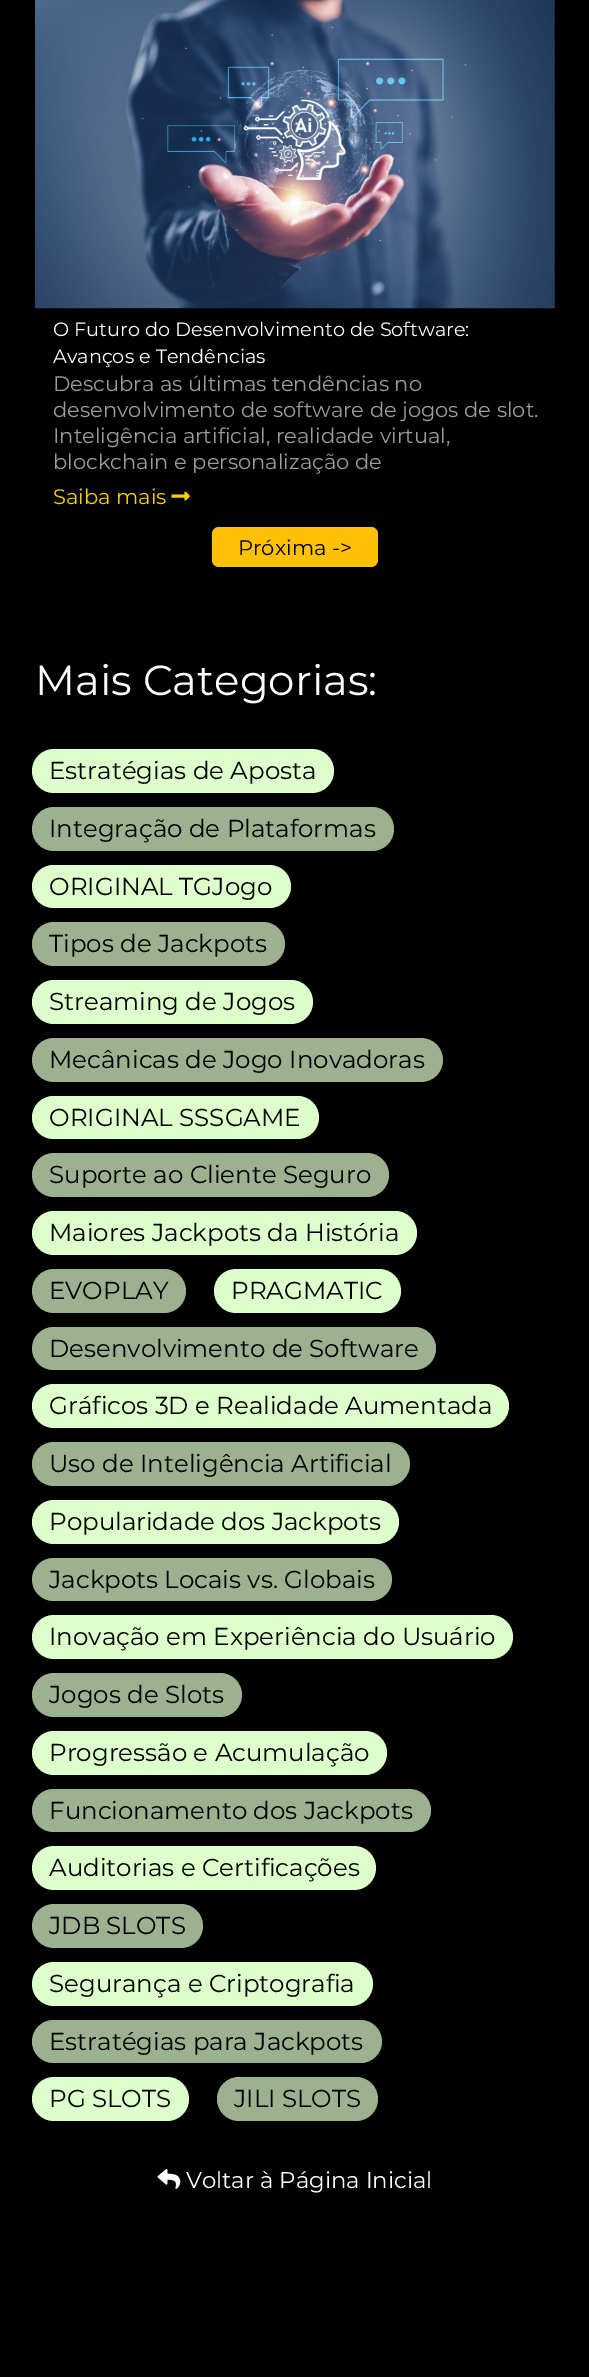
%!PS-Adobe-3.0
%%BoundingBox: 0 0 589 2377
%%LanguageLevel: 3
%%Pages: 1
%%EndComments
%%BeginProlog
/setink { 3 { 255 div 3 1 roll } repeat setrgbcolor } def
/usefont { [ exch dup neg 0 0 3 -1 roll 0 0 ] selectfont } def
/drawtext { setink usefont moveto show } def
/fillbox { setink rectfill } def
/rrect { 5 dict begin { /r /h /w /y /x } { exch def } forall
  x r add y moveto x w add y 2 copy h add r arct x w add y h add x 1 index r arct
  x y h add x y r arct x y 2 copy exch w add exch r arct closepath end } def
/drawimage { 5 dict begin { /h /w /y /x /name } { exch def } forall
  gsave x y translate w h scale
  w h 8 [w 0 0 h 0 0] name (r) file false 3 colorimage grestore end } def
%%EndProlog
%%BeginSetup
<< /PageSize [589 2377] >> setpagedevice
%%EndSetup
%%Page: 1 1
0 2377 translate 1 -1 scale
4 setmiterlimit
0 0 589 2377 0 0 0 fillbox
(assets/img1.rgb) 35 0 520 309 drawimage
(O Futuro do Desenvolvimento de Software:) 53 336 /Montserrat-Regular 19.25 255 255 255 drawtext
(Avanços e Tendências) 53 363 /Montserrat-Regular 19.25 255 255 255 drawtext
(Descubra as últimas tendências no) 53 391 /Montserrat-Regular 21 157 155 156 drawtext
(desenvolvimento de software de jogos de slot.) 53 417 /Montserrat-Regular 21 157 155 156 drawtext
(Inteligência artificial, realidade virtual,) 53 443 /Montserrat-Regular 21 157 155 156 drawtext
(blockchain e personalização de) 53 469 /Montserrat-Regular 21 157 155 156 drawtext
(Saiba mais) 53 504 /Montserrat-Regular 21 243 208 9 drawtext
(assets/img2.rgb) 171 491 19 10 drawimage
255 193 7 setink
212 527 166 40 7 rrect fill
(Próxima ->) 238 555 /Montserrat-Regular 21 0 0 0 drawtext
(Mais Categorias:) 35 695 /Montserrat-Regular 42 255 255 255 drawtext
221 255 204 setink
32 749 302 44 22 rrect fill
(Estratégias de Aposta) 49 779 /Montserrat-Regular 24.5 0 0 0 drawtext
155 177 143 setink
32 807 362 44 22 rrect fill
(Integração de Plataformas) 49 837 /Montserrat-Regular 24.5 0 0 0 drawtext
221 255 204 setink
32 865 259 43 21.5 rrect fill
(ORIGINAL TGJogo) 49 895 /Montserrat-Regular 24.5 0 0 0 drawtext
155 177 143 setink
32 922 253 44 22 rrect fill
(Tipos de Jackpots) 49 952 /Montserrat-Regular 24.5 0 0 0 drawtext
221 255 204 setink
32 980 281 44 22 rrect fill
(Streaming de Jogos) 49 1010 /Montserrat-Regular 24.5 0 0 0 drawtext
155 177 143 setink
32 1038 411 44 22 rrect fill
(Mecânicas de Jogo Inovadoras) 49 1068 /Montserrat-Regular 24.5 0 0 0 drawtext
221 255 204 setink
32 1096 287 43 21.5 rrect fill
(ORIGINAL SSSGAME) 49 1126 /Montserrat-Regular 24.5 0 0 0 drawtext
155 177 143 setink
32 1153 357 44 22 rrect fill
(Suporte ao Cliente Seguro) 49 1183 /Montserrat-Regular 24.5 0 0 0 drawtext
221 255 204 setink
32 1211 385 44 22 rrect fill
(Maiores Jackpots da História) 49 1241 /Montserrat-Regular 24.5 0 0 0 drawtext
155 177 143 setink
32 1269 154 44 22 rrect fill
(EVOPLAY) 49 1299 /Montserrat-Regular 24.5 0 0 0 drawtext
221 255 204 setink
214 1269 187 44 22 rrect fill
(PRAGMATIC) 231 1299 /Montserrat-Regular 24.5 0 0 0 drawtext
155 177 143 setink
32 1327 404 43 21.5 rrect fill
(Desenvolvimento de Software) 49 1357 /Montserrat-Regular 24.5 0 0 0 drawtext
221 255 204 setink
32 1384 477 44 22 rrect fill
(Gráficos 3D e Realidade Aumentada) 49 1414 /Montserrat-Regular 24.5 0 0 0 drawtext
155 177 143 setink
32 1442 378 44 22 rrect fill
(Uso de Inteligência Artificial) 49 1472 /Montserrat-Regular 24.5 0 0 0 drawtext
221 255 204 setink
32 1500 367 44 22 rrect fill
(Popularidade dos Jackpots) 49 1530 /Montserrat-Regular 24.5 0 0 0 drawtext
155 177 143 setink
32 1558 360 43 21.5 rrect fill
(Jackpots Locais vs. Globais) 49 1588 /Montserrat-Regular 24.5 0 0 0 drawtext
221 255 204 setink
32 1615 481 44 22 rrect fill
(Inovação em Experiência do Usuário) 49 1645 /Montserrat-Regular 24.5 0 0 0 drawtext
155 177 143 setink
32 1673 210 44 22 rrect fill
(Jogos de Slots) 49 1703 /Montserrat-Regular 24.5 0 0 0 drawtext
221 255 204 setink
32 1731 355 44 22 rrect fill
(Progressão e Acumulação) 49 1761 /Montserrat-Regular 24.5 0 0 0 drawtext
155 177 143 setink
32 1789 399 43 21.5 rrect fill
(Funcionamento dos Jackpots) 49 1819 /Montserrat-Regular 24.5 0 0 0 drawtext
221 255 204 setink
32 1846 344 44 22 rrect fill
(Auditorias e Certificações) 49 1876 /Montserrat-Regular 24.5 0 0 0 drawtext
155 177 143 setink
32 1904 171 44 22 rrect fill
(JDB SLOTS) 49 1934 /Montserrat-Regular 24.5 0 0 0 drawtext
221 255 204 setink
32 1962 341 44 22 rrect fill
(Segurança e Criptografia) 49 1992 /Montserrat-Regular 24.5 0 0 0 drawtext
155 177 143 setink
32 2020 350 43 21.5 rrect fill
(Estratégias para Jackpots) 49 2050 /Montserrat-Regular 24.5 0 0 0 drawtext
221 255 204 setink
32 2077 157 44 22 rrect fill
(PG SLOTS) 49 2107 /Montserrat-Regular 24.5 0 0 0 drawtext
155 177 143 setink
217 2077 161 44 22 rrect fill
(JILI SLOTS) 234 2107 /Montserrat-Regular 24.5 0 0 0 drawtext
(assets/img3.rgb) 157 2169 24 20 drawimage
(Voltar à Página Inicial) 186 2188 /Montserrat-Regular 22.75 255 255 255 drawtext
showpage
%%EOF
